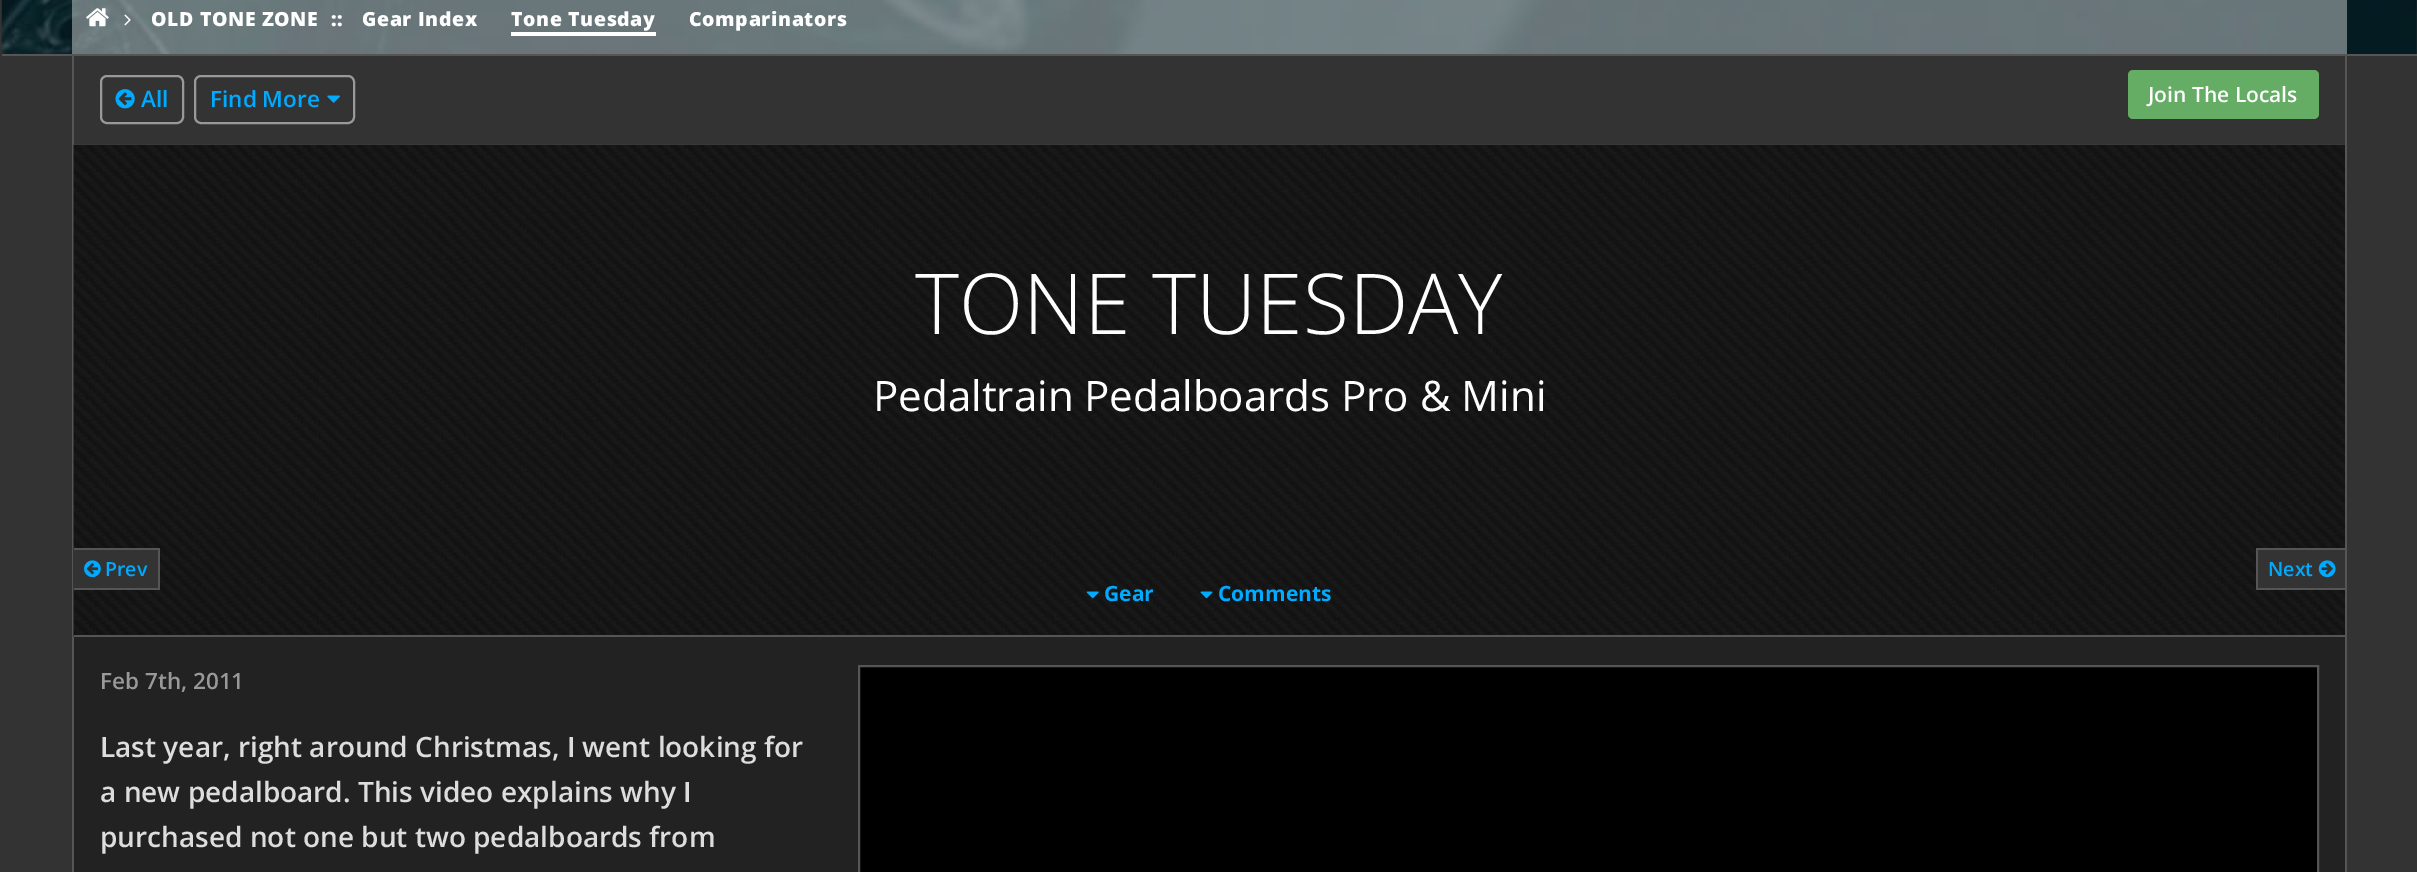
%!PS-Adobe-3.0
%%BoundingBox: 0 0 2417 872
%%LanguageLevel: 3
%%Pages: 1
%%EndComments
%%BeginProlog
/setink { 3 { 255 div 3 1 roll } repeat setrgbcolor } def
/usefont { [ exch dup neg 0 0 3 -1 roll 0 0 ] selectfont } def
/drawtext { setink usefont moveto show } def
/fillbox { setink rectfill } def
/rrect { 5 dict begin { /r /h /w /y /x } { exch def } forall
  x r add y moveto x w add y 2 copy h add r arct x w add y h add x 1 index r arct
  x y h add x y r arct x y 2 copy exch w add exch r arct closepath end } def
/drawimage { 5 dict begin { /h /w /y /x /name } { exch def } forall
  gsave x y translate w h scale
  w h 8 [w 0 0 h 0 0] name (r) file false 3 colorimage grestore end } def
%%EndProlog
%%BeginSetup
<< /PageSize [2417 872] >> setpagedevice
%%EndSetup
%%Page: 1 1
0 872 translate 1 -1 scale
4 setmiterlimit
0 0 2417 872 51 51 51 fillbox
(assets/img1.rgb) 1 0 2416 56 drawimage
2 54 2415 2 85 85 85 fillbox
(assets/img2.rgb) 86 8 23 19 drawimage
(assets/img3.rgb) 124 14 7 12 drawimage
/OpenSans-ExtraBold 19.5 usefont
255 255 255 setink
151 26 moveto 0.6 0 (OLD TONE ZONE) ashow
(::) 331 26 /OpenSans-ExtraBold 19.5 255 255 255 drawtext
362 26 moveto 0.6 0 (Gear Index) ashow
511 26 moveto 0.6 0 (Tone Tuesday) ashow
511 32 145 4 255 255 255 fillbox
689 26 moveto 0.6 0 (Comparinators) ashow
2345 56 2 816 85 85 85 fillbox
72 56 2 816 85 85 85 fillbox
74 144 2271 1 68 68 68 fillbox
153 153 153 setink
2 setlinewidth
101 76 82 47 6 rrect stroke
(assets/img4.rgb) 115 89 20 20 drawimage
(All) 141 107 /OpenSans-SemiBold 22.5 0 170 255 drawtext
153 153 153 setink
195 76 159 47 6 rrect stroke
(Find More) 210 107 /OpenSans-SemiBold 22.5 0 170 255 drawtext
(assets/img5.rgb) 327 95 13 8 drawimage
101 172 101 setink
2128 70 191 49 5 rrect fill
(Join The Locals) 2148 102 /OpenSans-SemiBold 21 255 255 255 drawtext
(assets/img6.rgb) 73 144 2272 493 drawimage
(TONE TUESDAY) 915 334 /OpenSans-Light 84 255 255 255 drawtext
(Pedaltrain Pedalboards Pro & Mini) 873 411 /OpenSans-Regular 42 255 255 255 drawtext
74 550 84 38 51 51 51 fillbox
74 548 85 2 85 85 85 fillbox
158 548 2 42 85 85 85 fillbox
74 588 85 2 85 85 85 fillbox
(assets/img7.rgb) 84 560 17 18 drawimage
(Prev) 105 576 /OpenSans-SemiBold 19.5 0 170 255 drawtext
2258 550 87 38 51 51 51 fillbox
2256 548 89 2 85 85 85 fillbox
2256 588 89 2 85 85 85 fillbox
2256 548 2 42 85 85 85 fillbox
(Next) 2268 576 /OpenSans-SemiBold 19.5 0 170 255 drawtext
(assets/img8.rgb) 2318 560 18 18 drawimage
(assets/img9.rgb) 1086 591 13 8 drawimage
(Gear) 1104 601 /OpenSans-Bold 21 0 170 255 drawtext
(assets/img10.rgb) 1200 591 13 8 drawimage
(Comments) 1218 601 /OpenSans-Bold 21 0 170 255 drawtext
74 637 2271 235 34 34 34 fillbox
74 635 2271 2 85 85 85 fillbox
(Feb 7th, 2011) 100 689 /OpenSans-SemiBold 22.5 153 153 153 drawtext
(Last year, right around Christmas, I went looking for) 100 757 /OpenSans-SemiBold 28 221 221 221 drawtext
(a new pedalboard. This video explains why I) 100 802 /OpenSans-SemiBold 28 221 221 221 drawtext
(purchased not one but two pedalboards from) 100 847 /OpenSans-SemiBold 28 221 221 221 drawtext
0 0 0 setink
859 666 moveto 2318 666 lineto 2318 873 lineto 859 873 lineto closepath gsave fill grestore
85 85 85 setink
stroke
showpage
%%EOF
